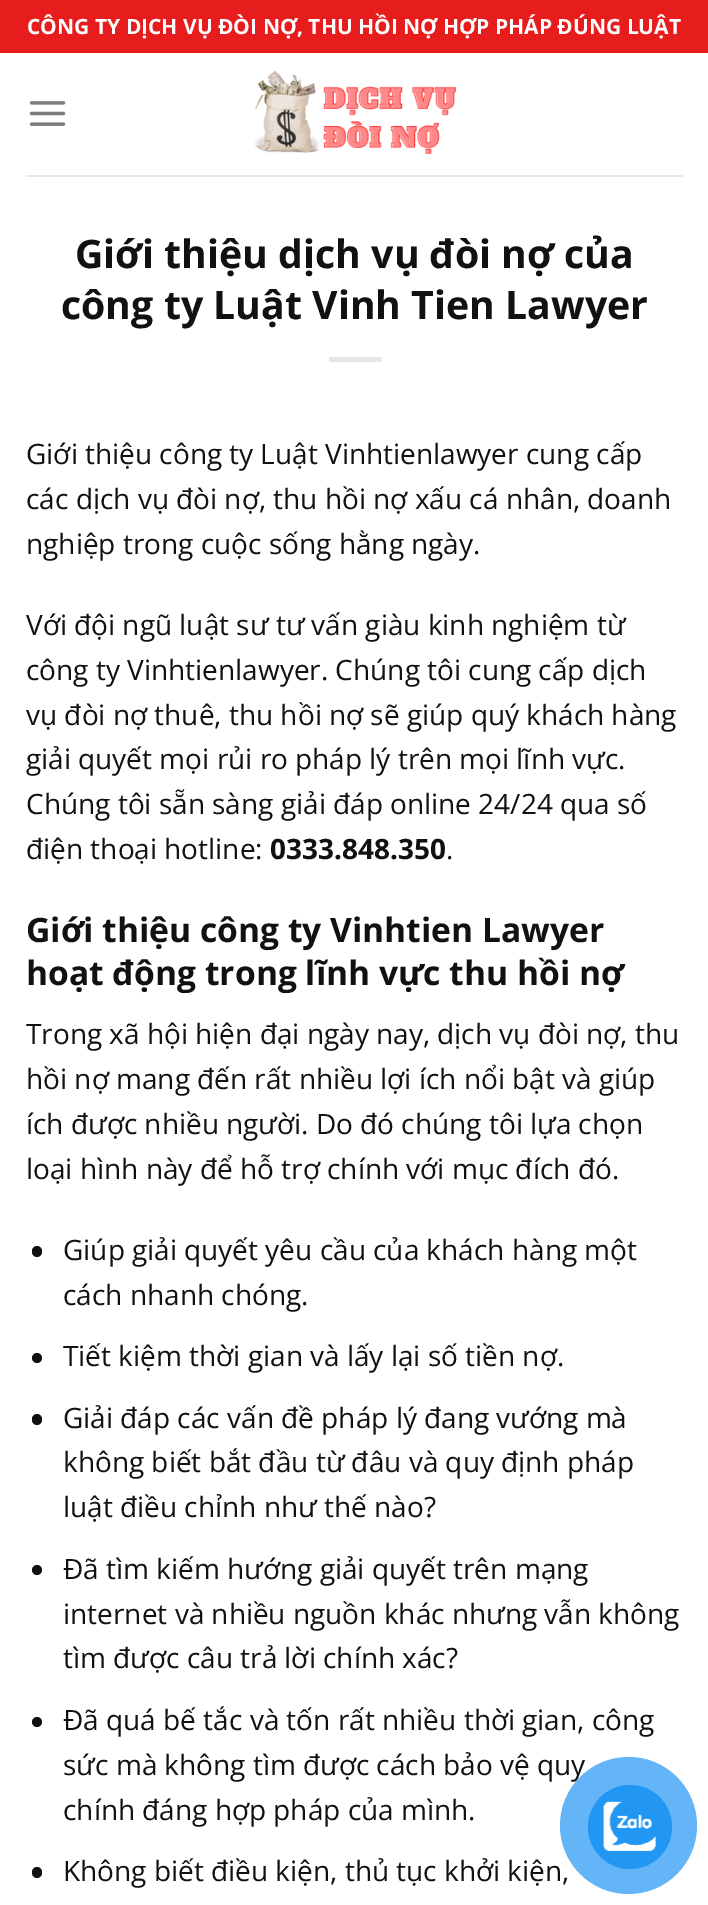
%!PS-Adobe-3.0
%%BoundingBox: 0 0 708 1905
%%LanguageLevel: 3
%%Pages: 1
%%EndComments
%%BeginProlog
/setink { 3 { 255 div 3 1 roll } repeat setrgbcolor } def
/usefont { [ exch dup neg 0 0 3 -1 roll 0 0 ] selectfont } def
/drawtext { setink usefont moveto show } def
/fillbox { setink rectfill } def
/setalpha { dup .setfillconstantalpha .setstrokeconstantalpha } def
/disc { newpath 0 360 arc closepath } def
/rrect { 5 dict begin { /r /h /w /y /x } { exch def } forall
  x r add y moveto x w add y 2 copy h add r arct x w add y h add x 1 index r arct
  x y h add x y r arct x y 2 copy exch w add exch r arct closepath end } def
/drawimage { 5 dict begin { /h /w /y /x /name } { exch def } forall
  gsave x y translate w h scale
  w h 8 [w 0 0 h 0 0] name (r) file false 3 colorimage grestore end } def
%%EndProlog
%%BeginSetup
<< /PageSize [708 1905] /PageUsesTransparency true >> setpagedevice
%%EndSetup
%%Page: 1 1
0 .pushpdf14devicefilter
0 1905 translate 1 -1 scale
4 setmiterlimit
0 0 708 1905 255 255 255 fillbox
0 0 708 53 231 28 28 fillbox
(CÔNG TY DỊCH VỤ ĐÒI NỢ, THU HỒI NỢ HỢP PHÁP ĐÚNG LUẬT) 27 34 /OpenSans-Bold 21 255 255 255 drawtext
(assets/img1.rgb) 29 101 37 25 drawimage
(assets/img2.rgb) 254 70 202 84 drawimage
26 175 657 2 231 231 231 fillbox
(Giới thiệu dịch vụ đòi nợ của) 75 268 /OpenSans-Bold 39.25 17 17 17 drawtext
(công ty Luật Vinh Tien Lawyer) 61 319 /OpenSans-Bold 39.25 17 17 17 drawtext
329 357 53 5 230 230 230 fillbox
(Giới thiệu công ty Luật Vinhtienlawyer cung cấp) 26 464 /OpenSans-Regular 28 17 17 17 drawtext
(các dịch vụ đòi nợ, thu hồi nợ xấu cá nhân, doanh) 26 509 /OpenSans-Regular 28 17 17 17 drawtext
(nghiệp trong cuộc sống hằng ngày.) 26 554 /OpenSans-Regular 28 17 17 17 drawtext
(Với đội ngũ luật sư tư vấn giàu kinh nghiệm từ) 26 635 /OpenSans-Regular 28 17 17 17 drawtext
(công ty Vinhtienlawyer. Chúng tôi cung cấp dịch) 26 680 /OpenSans-Regular 28 17 17 17 drawtext
(vụ đòi nợ thuê, thu hồi nợ sẽ giúp quý khách hàng) 26 725 /OpenSans-Regular 28 17 17 17 drawtext
(giải quyết mọi rủi ro pháp lý trên mọi lĩnh vực.) 26 769 /OpenSans-Regular 28 17 17 17 drawtext
(Chúng tôi sẵn sàng giải đáp online 24/24 qua số) 26 814 /OpenSans-Regular 28 17 17 17 drawtext
(điện thoại hotline:) 26 859 /OpenSans-Regular 28 17 17 17 drawtext
(0333.848.350) 270 859 /OpenSans-Bold 28 17 17 17 drawtext
(.) 446 859 /OpenSans-Regular 28 17 17 17 drawtext
(Giới thiệu công ty Vinhtien Lawyer) 26 942 /OpenSans-Bold 33.6 17 17 17 drawtext
(hoạt động trong lĩnh vực thu hồi nợ) 26 985 /OpenSans-Bold 33.6 17 17 17 drawtext
(Trong xã hội hiện đại ngày nay, dịch vụ đòi nợ, thu) 26 1044 /OpenSans-Regular 28 17 17 17 drawtext
(hồi nợ mang đến rất nhiều lợi ích nổi bật và giúp) 26 1089 /OpenSans-Regular 28 17 17 17 drawtext
(ích được nhiều người. Do đó chúng tôi lựa chọn) 26 1134 /OpenSans-Regular 28 17 17 17 drawtext
(loại hình này để hỗ trợ chính với mục đích đó.) 26 1179 /OpenSans-Regular 28 17 17 17 drawtext
32 1246 10 11 5 rrect fill
(Giúp giải quyết yêu cầu của khách hàng một) 63 1260 /OpenSans-Regular 28 17 17 17 drawtext
(cách nhanh chóng.) 63 1305 /OpenSans-Regular 28 17 17 17 drawtext
37 1358 5 disc fill
(Tiết kiệm thời gian và lấy lại số tiền nợ.) 63 1366 /OpenSans-Regular 28 17 17 17 drawtext
32 1414 10 11 5 rrect fill
(Giải đáp các vấn đề pháp lý đang vướng mà) 63 1428 /OpenSans-Regular 28 17 17 17 drawtext
(không biết bắt đầu từ đâu và quy định pháp) 63 1472 /OpenSans-Regular 28 17 17 17 drawtext
(luật điều chỉnh như thế nào?) 63 1517 /OpenSans-Regular 28 17 17 17 drawtext
37 1570 5 disc fill
(Đã tìm kiếm hướng giải quyết trên mạng) 63 1579 /OpenSans-Regular 28 17 17 17 drawtext
(internet và nhiều nguồn khác nhưng vẫn không) 63 1624 /OpenSans-Regular 28 17 17 17 drawtext
(tìm được câu trả lời chính xác?) 63 1668 /OpenSans-Regular 28 17 17 17 drawtext
37 1722 5 disc fill
(Đã quá bế tắc và tốn rất nhiều thời gian, công) 63 1730 /OpenSans-Regular 28 17 17 17 drawtext
(sức mà không tìm được cách bảo vệ quy) 63 1775 /OpenSans-Regular 28 17 17 17 drawtext
(chính đáng hợp pháp của mình.) 63 1820 /OpenSans-Regular 28 17 17 17 drawtext
32 1867 10 11 5 rrect fill
(Không biết điều kiện, thủ tục khởi kiện,) 63 1881 /OpenSans-Regular 28 17 17 17 drawtext
0.7 setalpha
33 150 243 setink
628.5 1825.5 68.5 disc fill
1 setalpha
630 1827 42 disc fill
(assets/img3.rgb) 603 1801 53 50 drawimage
.poppdf14devicefilter showpage
%%EOF
